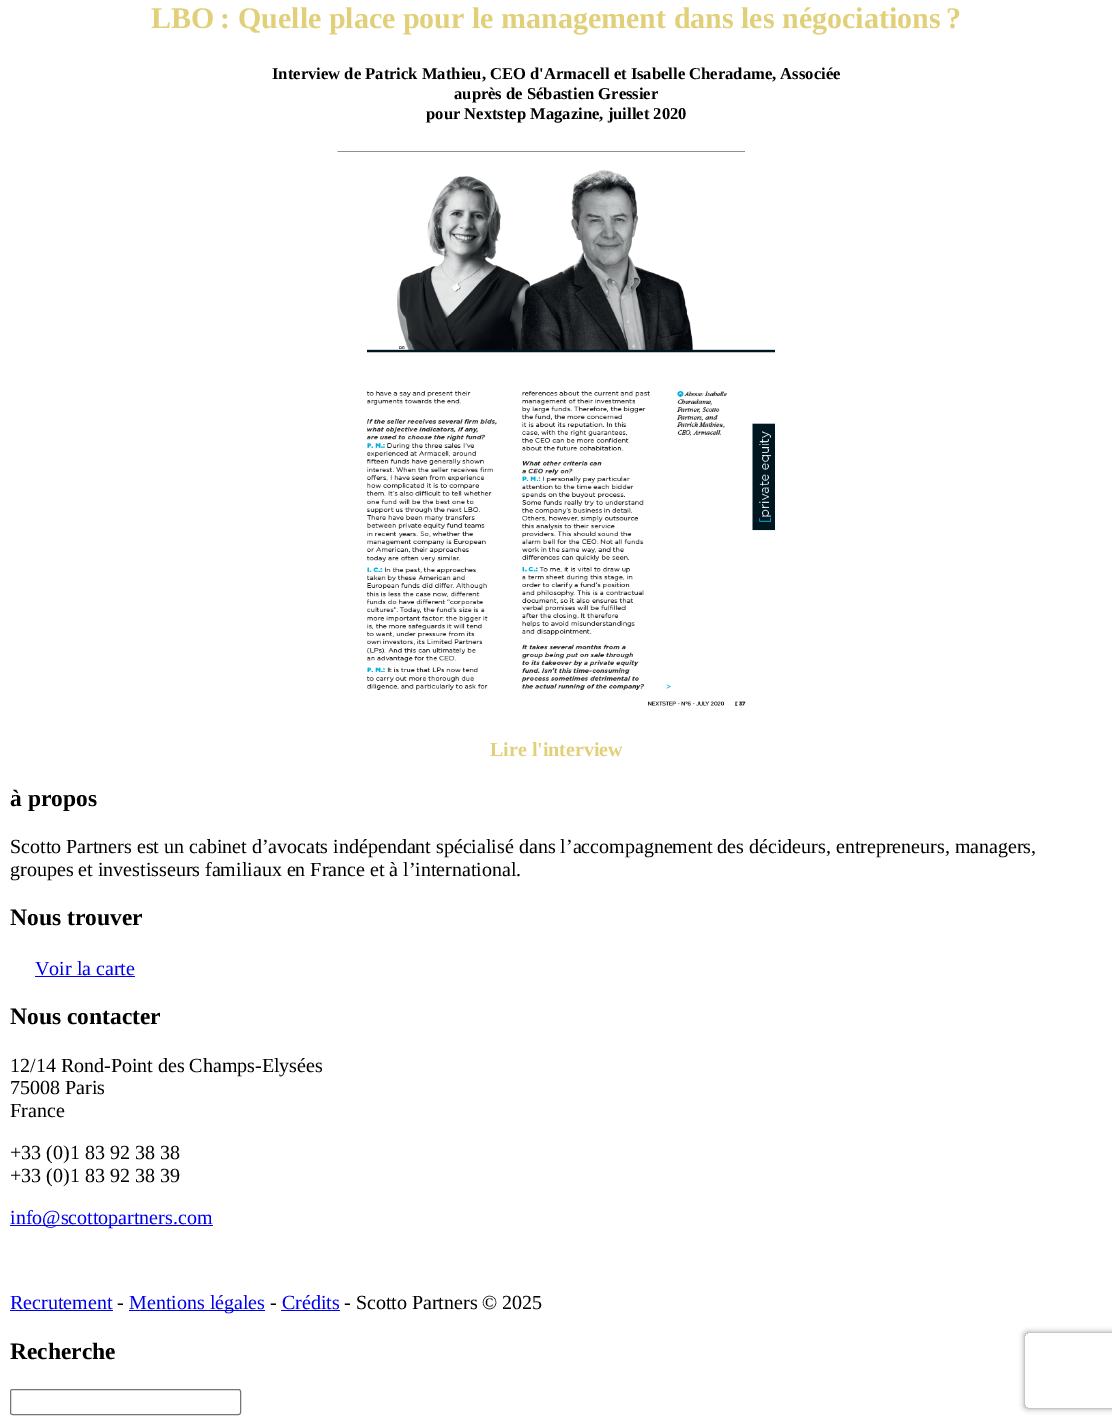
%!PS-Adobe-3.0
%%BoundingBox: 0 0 1112 1424
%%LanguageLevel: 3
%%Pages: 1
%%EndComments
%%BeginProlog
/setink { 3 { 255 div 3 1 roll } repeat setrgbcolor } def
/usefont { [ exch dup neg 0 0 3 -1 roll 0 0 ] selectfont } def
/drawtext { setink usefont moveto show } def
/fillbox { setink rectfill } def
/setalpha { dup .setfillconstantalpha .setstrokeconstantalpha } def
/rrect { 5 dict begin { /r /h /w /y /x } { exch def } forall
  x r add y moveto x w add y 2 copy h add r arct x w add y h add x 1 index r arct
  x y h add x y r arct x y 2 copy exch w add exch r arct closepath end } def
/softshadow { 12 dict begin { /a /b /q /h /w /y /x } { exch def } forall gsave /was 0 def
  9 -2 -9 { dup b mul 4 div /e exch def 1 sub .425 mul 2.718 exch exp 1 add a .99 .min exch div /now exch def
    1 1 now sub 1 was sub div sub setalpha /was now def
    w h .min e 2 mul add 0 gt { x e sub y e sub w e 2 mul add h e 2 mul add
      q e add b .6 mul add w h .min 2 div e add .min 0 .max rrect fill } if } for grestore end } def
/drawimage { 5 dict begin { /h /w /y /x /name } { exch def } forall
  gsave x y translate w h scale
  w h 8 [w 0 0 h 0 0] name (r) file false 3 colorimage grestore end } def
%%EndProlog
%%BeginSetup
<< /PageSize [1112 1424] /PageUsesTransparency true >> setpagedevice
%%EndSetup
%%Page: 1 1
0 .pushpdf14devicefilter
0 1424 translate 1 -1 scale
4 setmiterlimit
0 0 1112 1424 255 255 255 fillbox
(LBO : Quelle place pour le management dans les négociations ?) 151 28 /LiberationSerif-Bold 30 225 207 121 drawtext
(Interview de Patrick Mathieu, CEO d'Armacell et Isabelle Cheradame, Associée) 272 79 /LiberationSerif-Bold 16.6 0 0 0 drawtext
(auprès de Sébastien Gressier) 454 99 /LiberationSerif-Bold 16.6 0 0 0 drawtext
(pour Nextstep Magazine, juillet 2020) 426 119 /LiberationSerif-Bold 16.6 0 0 0 drawtext
(assets/img1.rgb) 337 151 438 555 drawimage
(Lire l'interview) 490 756 /LiberationSerif-Bold 20 225 207 121 drawtext
(à propos) 10 806 /LiberationSerif-Bold 23.5 0 0 0 drawtext
(Scotto Partners est un cabinet d’avocats indépendant spécialisé dans l’accompagnement des décideurs, entrepreneurs, managers,) 10 853 /LiberationSerif-Regular 20 0 0 0 drawtext
(groupes et investisseurs familiaux en France et à l’international.) 10 876 /LiberationSerif-Regular 20 0 0 0 drawtext
(Nous trouver) 10 925 /LiberationSerif-Bold 23.5 0 0 0 drawtext
(Voir la carte) 35 975 /LiberationSerif-Regular 20 0 0 238 drawtext
35 976 100 1 0 0 238 fillbox
(Nous contacter) 10 1024 /LiberationSerif-Bold 23.5 0 0 0 drawtext
(12/14 Rond-Point des Champs-Elysées) 10 1072 /LiberationSerif-Regular 20 0 0 0 drawtext
(75008 Paris) 10 1094 /LiberationSerif-Regular 20 0 0 0 drawtext
(France) 10 1117 /LiberationSerif-Regular 20 0 0 0 drawtext
(+33 \(0\)1 83 92 38 38) 10 1159 /LiberationSerif-Regular 20 0 0 0 drawtext
(+33 \(0\)1 83 92 38 39) 10 1182 /LiberationSerif-Regular 20 0 0 0 drawtext
10 1225 203 1 0 0 238 fillbox
(info@scottopartners.com) 10 1224 /LiberationSerif-Regular 20 0 0 238 drawtext
(Recrutement) 10 1309 /LiberationSerif-Regular 20 0 0 238 drawtext
10 1310 103 1 0 0 238 fillbox
(-) 117 1309 /LiberationSerif-Regular 20 0 0 0 drawtext
129 1310 136 1 0 0 238 fillbox
(Mentions légales) 129 1309 /LiberationSerif-Regular 20 0 0 238 drawtext
(-) 270 1309 /LiberationSerif-Regular 20 0 0 0 drawtext
(Crédits) 282 1309 /LiberationSerif-Regular 20 0 0 238 drawtext
281 1310 59 1 0 0 238 fillbox
(- Scotto Partners © 2025) 344 1309 /LiberationSerif-Regular 20 0 0 0 drawtext
(Recherche) 10 1359 /LiberationSerif-Bold 23.5 0 0 0 drawtext
118 118 118 setink
10.5 1389.5 230 25 2 rrect stroke
gsave
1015 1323 moveto 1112 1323 lineto 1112 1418 lineto 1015 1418 lineto closepath 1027.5 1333 moveto 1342.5 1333 lineto 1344 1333 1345 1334 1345 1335.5 curveto 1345 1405.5 lineto 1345 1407 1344 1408 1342.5 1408 curveto 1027.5 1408 lineto 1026 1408 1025 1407 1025 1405.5 curveto 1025 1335.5 lineto 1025 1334 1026 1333 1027.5 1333 curveto closepath eoclip newpath
128 128 128 setink
1025 1333 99 75 2.5 3 1 softshadow
grestore
.poppdf14devicefilter showpage
%%EOF
